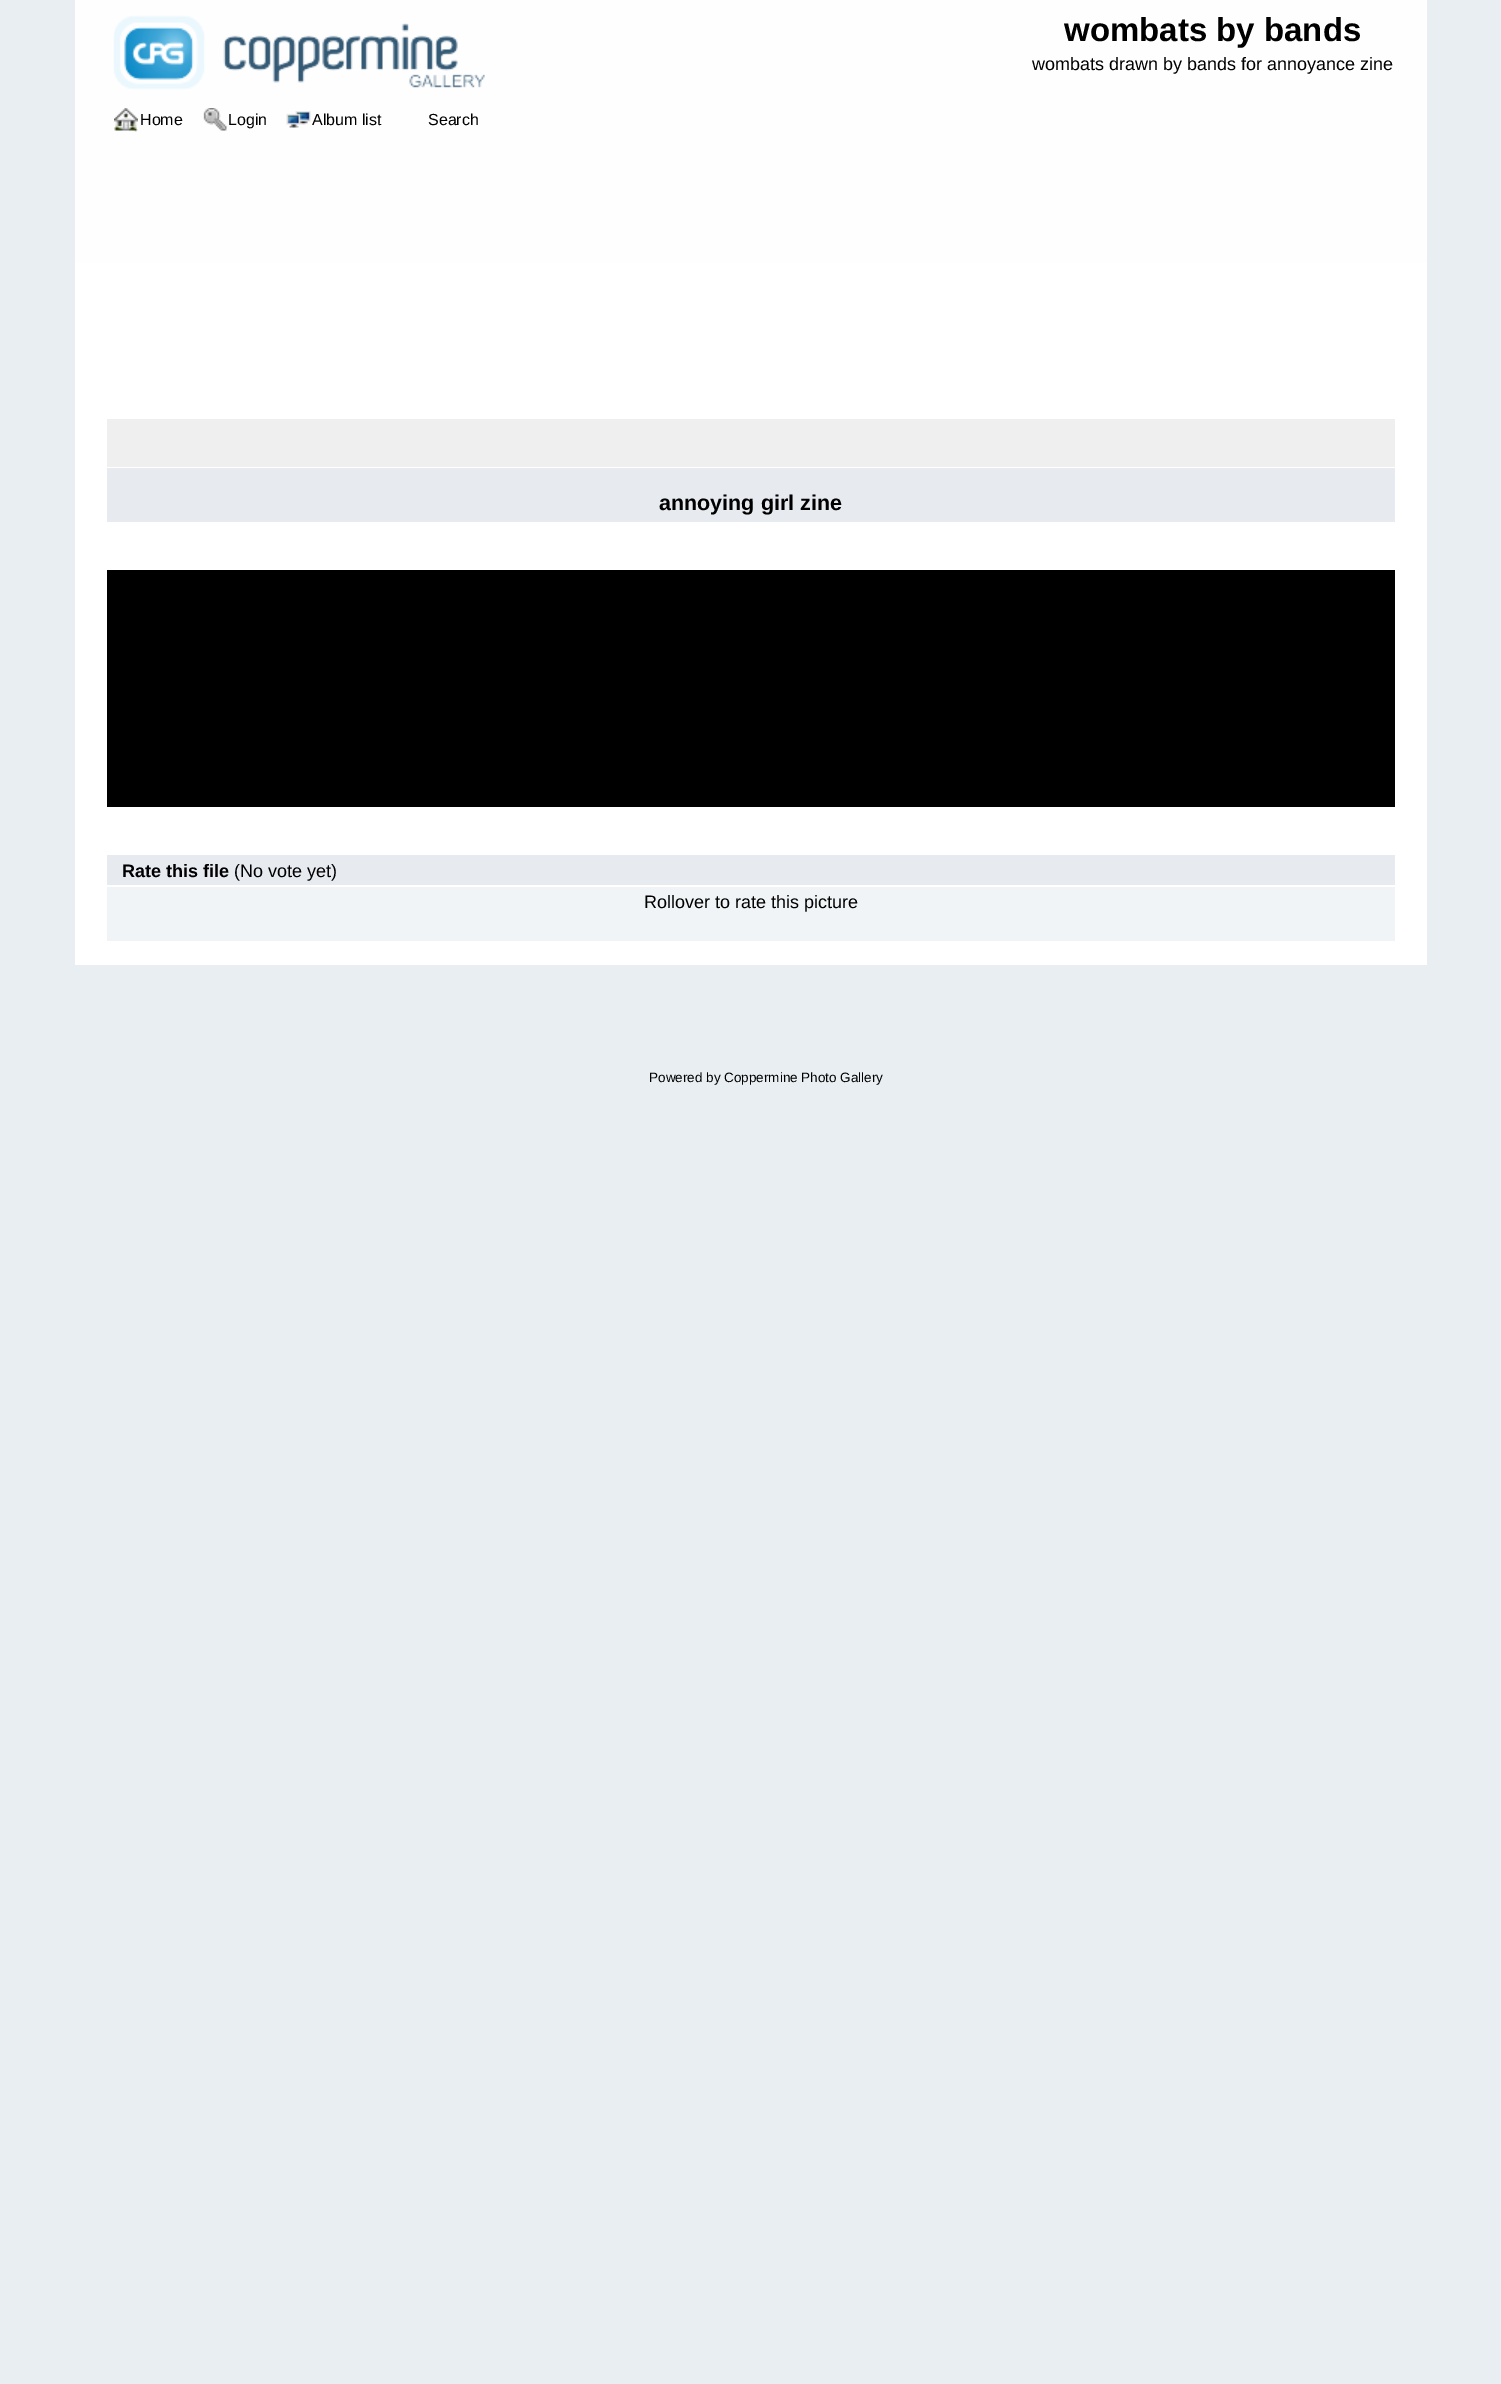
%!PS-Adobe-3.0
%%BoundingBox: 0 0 1501 2384
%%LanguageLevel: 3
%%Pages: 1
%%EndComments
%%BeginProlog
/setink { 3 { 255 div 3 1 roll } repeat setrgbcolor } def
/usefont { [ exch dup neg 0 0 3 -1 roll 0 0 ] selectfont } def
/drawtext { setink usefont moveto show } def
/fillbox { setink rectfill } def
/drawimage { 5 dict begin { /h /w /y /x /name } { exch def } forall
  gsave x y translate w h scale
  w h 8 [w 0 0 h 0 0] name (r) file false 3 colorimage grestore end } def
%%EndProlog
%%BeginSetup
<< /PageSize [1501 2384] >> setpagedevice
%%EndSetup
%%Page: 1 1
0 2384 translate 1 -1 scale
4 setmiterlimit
0 0 1501 2384 233 238 242 fillbox
75 0 1352 263 254 254 254 fillbox
(assets/img1.rgb) 113 15 372 75 drawimage
(wombats by bands) 1064 41 /LiberationSans-Bold 33 0 0 0 drawtext
(wombats drawn by bands for annoyance zine) 1032 70 /LiberationSans-Regular 18 0 0 0 drawtext
(assets/img2.rgb) 114 108 24 24 drawimage
(Home) 140 125 /LiberationSans-Regular 16 0 0 0 drawtext
(assets/img3.rgb) 203 108 24 23 drawimage
(Login) 228 125 /LiberationSans-Regular 16 0 0 0 drawtext
(assets/img4.rgb) 286 111 25 17 drawimage
(Album list) 312 125 /LiberationSans-Regular 16 0 0 0 drawtext
(Search) 428 125 /LiberationSans-Regular 16 0 0 0 drawtext
75 263 1352 702 255 255 255 fillbox
107 419 1288 48 239 239 239 fillbox
107 468 1288 54 231 234 239 fillbox
(annoying girl zine) 659 510 /LiberationSans-Bold 21.5 0 0 0 drawtext
107 570 1288 237 0 0 0 fillbox
107 855 1288 30 231 234 239 fillbox
(Rate this file) 122 877 /LiberationSans-Bold 18 0 0 0 drawtext
(\(No vote yet\)) 234 877 /LiberationSans-Regular 18 0 0 0 drawtext
107 887 1288 54 240 244 247 fillbox
(Rollover to rate this picture) 644 908 /LiberationSans-Regular 18 0 0 0 drawtext
(Powered by Coppermine Photo Gallery) 649 1082 /LiberationSans-Regular 13.5 0 0 0 drawtext
showpage
%%EOF
